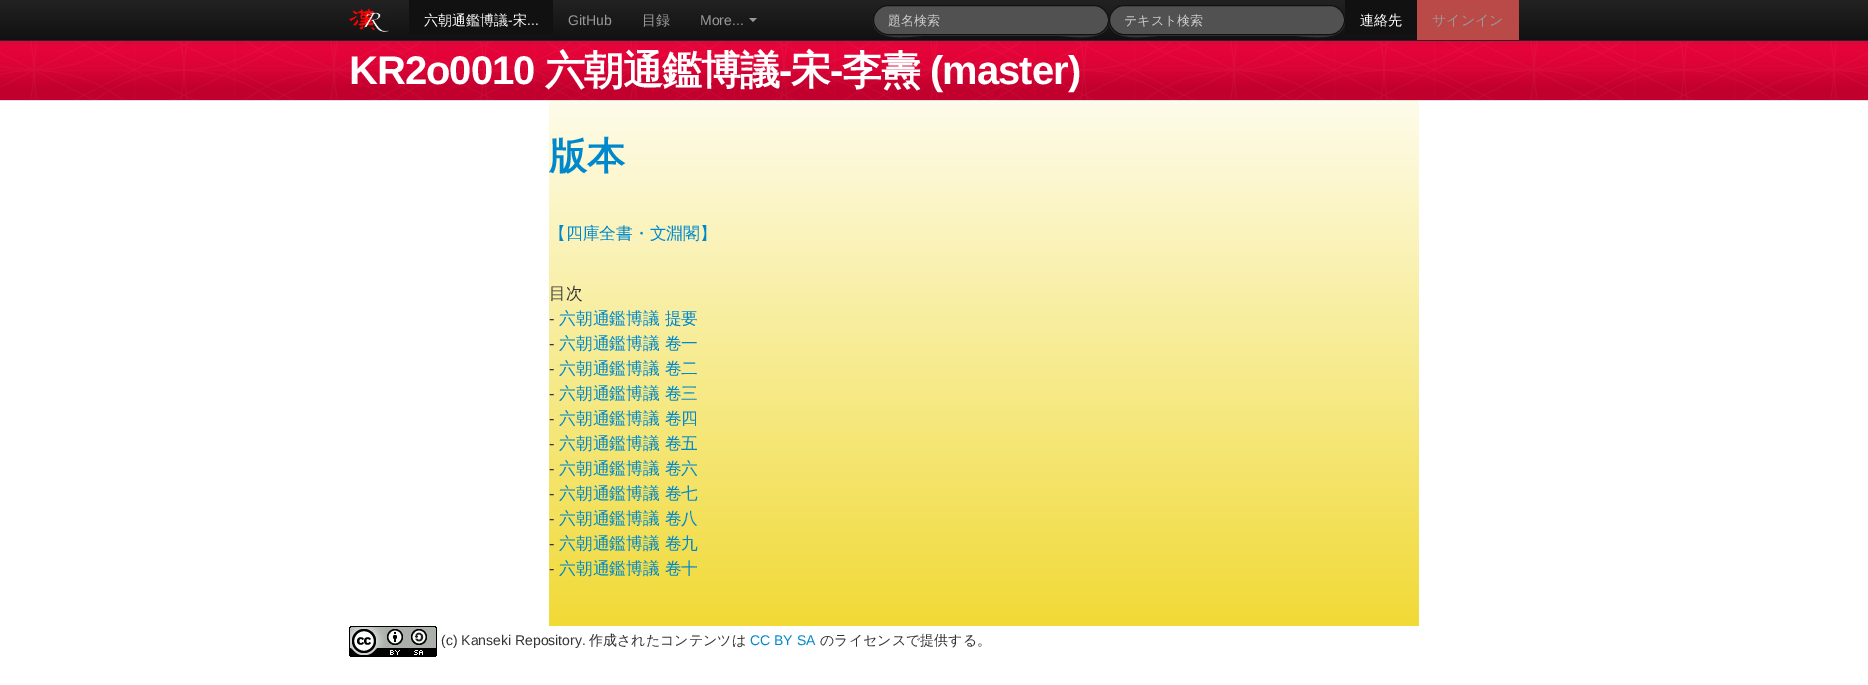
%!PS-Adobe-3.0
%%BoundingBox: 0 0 1868 685
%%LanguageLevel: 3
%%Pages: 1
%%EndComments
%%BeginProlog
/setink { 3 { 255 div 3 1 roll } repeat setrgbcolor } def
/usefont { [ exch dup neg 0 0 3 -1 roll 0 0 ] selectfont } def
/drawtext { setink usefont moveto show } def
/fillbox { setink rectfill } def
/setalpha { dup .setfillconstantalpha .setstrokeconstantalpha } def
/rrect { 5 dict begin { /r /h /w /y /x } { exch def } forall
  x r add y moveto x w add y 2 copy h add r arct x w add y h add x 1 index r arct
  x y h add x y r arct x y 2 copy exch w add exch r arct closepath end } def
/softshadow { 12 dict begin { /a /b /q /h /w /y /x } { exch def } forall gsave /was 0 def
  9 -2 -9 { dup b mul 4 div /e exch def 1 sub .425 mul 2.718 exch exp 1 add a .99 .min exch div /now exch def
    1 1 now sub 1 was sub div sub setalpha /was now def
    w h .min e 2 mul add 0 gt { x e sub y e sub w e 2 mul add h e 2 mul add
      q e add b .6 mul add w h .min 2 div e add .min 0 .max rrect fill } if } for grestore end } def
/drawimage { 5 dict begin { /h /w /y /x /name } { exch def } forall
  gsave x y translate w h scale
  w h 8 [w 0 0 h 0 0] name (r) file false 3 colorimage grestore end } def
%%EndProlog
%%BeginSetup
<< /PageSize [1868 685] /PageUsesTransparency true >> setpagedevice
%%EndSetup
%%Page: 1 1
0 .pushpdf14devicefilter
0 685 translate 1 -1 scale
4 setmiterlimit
0 0 1868 685 255 255 255 fillbox
gsave 0 41 moveto 1868 41 lineto 1868 100 lineto 0 100 lineto closepath clip newpath
<< /ShadingType 2 /ColorSpace /DeviceRGB /Coords [934 40 934 100] /Extend [true true] /Function << /FunctionType 3 /Domain [0 1] /Functions [<< /FunctionType 2 /Domain [0 1] /C0 [0.933 0.016 0.231] /C1 [0.859 0.012 0.208] /N 1 >> << /FunctionType 2 /Domain [0 1] /C0 [0.859 0.012 0.208] /C1 [0.761 0 0.176] /N 1 >> << /FunctionType 2 /Domain [0 1] /C0 [0.761 0 0.176] /C1 [0.761 0 0.176] /N 1 >>] /Bounds [0.44 0.8] /Encode [0 1 0 1 0 1] >> >> shfill grestore
(assets/img2.rgb) 0 41 1868 59 drawimage
0 0 0 setink
0 1 1868 41 0 5 0.1 softshadow
gsave 0 0 moveto 1868 0 lineto 1868 40 lineto 0 40 lineto closepath clip newpath
<< /ShadingType 2 /ColorSpace /DeviceRGB /Coords [934 0 934 40] /Extend [true true] /Function << /FunctionType 2 /Domain [0 1] /C0 [0.133 0.133 0.133] /C1 [0.067 0.067 0.067] /N 1 >> >> shfill grestore
0 40 1868 1 37 37 37 fillbox
(assets/img1.rgb) 349 8 40 24 drawimage
409 0 144 34 17 17 17 fillbox
(六朝通鑑博議) 424 25 /WenQuanYiZenHei-Medium 14 255 255 255 drawtext
(-) 508 25 /LiberationSans-Regular 14 255 255 255 drawtext
(宋) 513 25 /WenQuanYiZenHei-Medium 14 255 255 255 drawtext
(...) 527 25 /LiberationSans-Regular 14 255 255 255 drawtext
(GitHub) 568 25 /LiberationSans-Regular 14 153 153 153 drawtext
(目録) 642 25 /WenQuanYiZenHei-Medium 14 153 153 153 drawtext
(More...) 700 25 /LiberationSans-Regular 14 153 153 153 drawtext
749 18 moveto 757 18 lineto 753 22 lineto closepath fill
54 54 54 setink
873 20 moveto 872 44 913 36 922 36 curveto 1060 36 lineto 1069 36 1110 44 1109 20 curveto 1109 29 1102 35 1094 35 curveto 888 35 lineto 880 35 873 29 873 20 curveto closepath fill
81 81 81 setink
873.5 5.5 235 29 14.5 rrect gsave fill grestore
17 17 17 setink
stroke
(題名検索) 888 25 /WenQuanYiZenHei-Medium 13 204 204 204 drawtext
54 54 54 setink
1109 20 moveto 1108 44 1149 36 1158 36 curveto 1296 36 lineto 1305 36 1346 44 1345 20 curveto 1345 29 1338 35 1330 35 curveto 1124 35 lineto 1116 35 1109 29 1109 20 curveto closepath fill
81 81 81 setink
1109.5 5.5 235 29 14.5 rrect gsave fill grestore
17 17 17 setink
stroke
(テキスト検索) 1124 25 /WenQuanYiZenHei-Medium 13 204 204 204 drawtext
1345 0 72 34 17 17 17 fillbox
(連絡先) 1360 25 /WenQuanYiZenHei-Medium 14 255 255 255 drawtext
1417 0 102 40 185 74 72 fillbox
(サインイン) 1432 25 /WenQuanYiZenHei-Medium 14 153 153 153 drawtext
0 100 1868 1 221 221 221 fillbox
/LiberationSans-Bold 40 usefont
255 255 255 setink
349 84 moveto -1 0 (KR2o0010) ashow
/WenQuanYiZenHei-Bold 40 usefont
545 84 moveto -1 0 (六朝通鑑博議) ashow
/LiberationSans-Bold 40 usefont
779 84 moveto -1 0 (-) ashow
/WenQuanYiZenHei-Bold 40 usefont
791 84 moveto -1 0 (宋) ashow
/LiberationSans-Bold 40 usefont
830 84 moveto -1 0 (-) ashow
/WenQuanYiZenHei-Bold 40 usefont
842 84 moveto -1 0 (李燾) ashow
/LiberationSans-Bold 40 usefont
930 84 moveto -1 0 (\(master\)) ashow
gsave 549 101 moveto 1419 101 lineto 1419 626 lineto 549 626 lineto closepath clip newpath
<< /ShadingType 2 /ColorSpace /DeviceRGB /Coords [984 101 984 626] /Extend [true true] /Function << /FunctionType 2 /Domain [0 1] /C0 [0.996 0.988 0.918] /C1 [0.945 0.855 0.212] /N 1 >> >> shfill grestore
(版本) 549 169 /WenQuanYiZenHei-Bold 38 0 136 204 drawtext
(【四庫全書・文淵閣】) 549 239 /WenQuanYiZenHei-Medium 16.75 0 136 204 drawtext
(目次) 549 299 /WenQuanYiZenHei-Medium 16.75 51 51 51 drawtext
(-) 549 324 /LiberationSans-Regular 16.75 51 51 51 drawtext
(六朝通鑑博議 提要) 559 324 /WenQuanYiZenHei-Medium 16.75 0 136 204 drawtext
(-) 549 349 /LiberationSans-Regular 16.75 51 51 51 drawtext
(六朝通鑑博議 卷一) 559 349 /WenQuanYiZenHei-Medium 16.75 0 136 204 drawtext
(-) 549 374 /LiberationSans-Regular 16.75 51 51 51 drawtext
(六朝通鑑博議 卷二) 559 374 /WenQuanYiZenHei-Medium 16.75 0 136 204 drawtext
(-) 549 399 /LiberationSans-Regular 16.75 51 51 51 drawtext
(六朝通鑑博議 卷三) 559 399 /WenQuanYiZenHei-Medium 16.75 0 136 204 drawtext
(-) 549 424 /LiberationSans-Regular 16.75 51 51 51 drawtext
(六朝通鑑博議 卷四) 559 424 /WenQuanYiZenHei-Medium 16.75 0 136 204 drawtext
(-) 549 449 /LiberationSans-Regular 16.75 51 51 51 drawtext
(六朝通鑑博議 卷五) 559 449 /WenQuanYiZenHei-Medium 16.75 0 136 204 drawtext
(-) 549 474 /LiberationSans-Regular 16.75 51 51 51 drawtext
(六朝通鑑博議 卷六) 559 474 /WenQuanYiZenHei-Medium 16.75 0 136 204 drawtext
(-) 549 499 /LiberationSans-Regular 16.75 51 51 51 drawtext
(六朝通鑑博議 卷七) 559 499 /WenQuanYiZenHei-Medium 16.75 0 136 204 drawtext
(-) 549 524 /LiberationSans-Regular 16.75 51 51 51 drawtext
(六朝通鑑博議 卷八) 559 524 /WenQuanYiZenHei-Medium 16.75 0 136 204 drawtext
(-) 549 549 /LiberationSans-Regular 16.75 51 51 51 drawtext
(六朝通鑑博議 卷九) 559 549 /WenQuanYiZenHei-Medium 16.75 0 136 204 drawtext
(-) 549 574 /LiberationSans-Regular 16.75 51 51 51 drawtext
(六朝通鑑博議 卷十) 559 574 /WenQuanYiZenHei-Medium 16.75 0 136 204 drawtext
(assets/img3.rgb) 349 626 88 31 drawimage
(\(c\) Kanseki Repository.) 441 645 /LiberationSans-Regular 14 51 51 51 drawtext
(作成されたコンテンツは) 589 645 /WenQuanYiZenHei-Medium 14 51 51 51 drawtext
(CC BY SA) 750 645 /LiberationSans-Regular 14 0 136 204 drawtext
(のライセンスで提供する。) 820 645 /WenQuanYiZenHei-Medium 14 51 51 51 drawtext
.poppdf14devicefilter showpage
%%EOF
